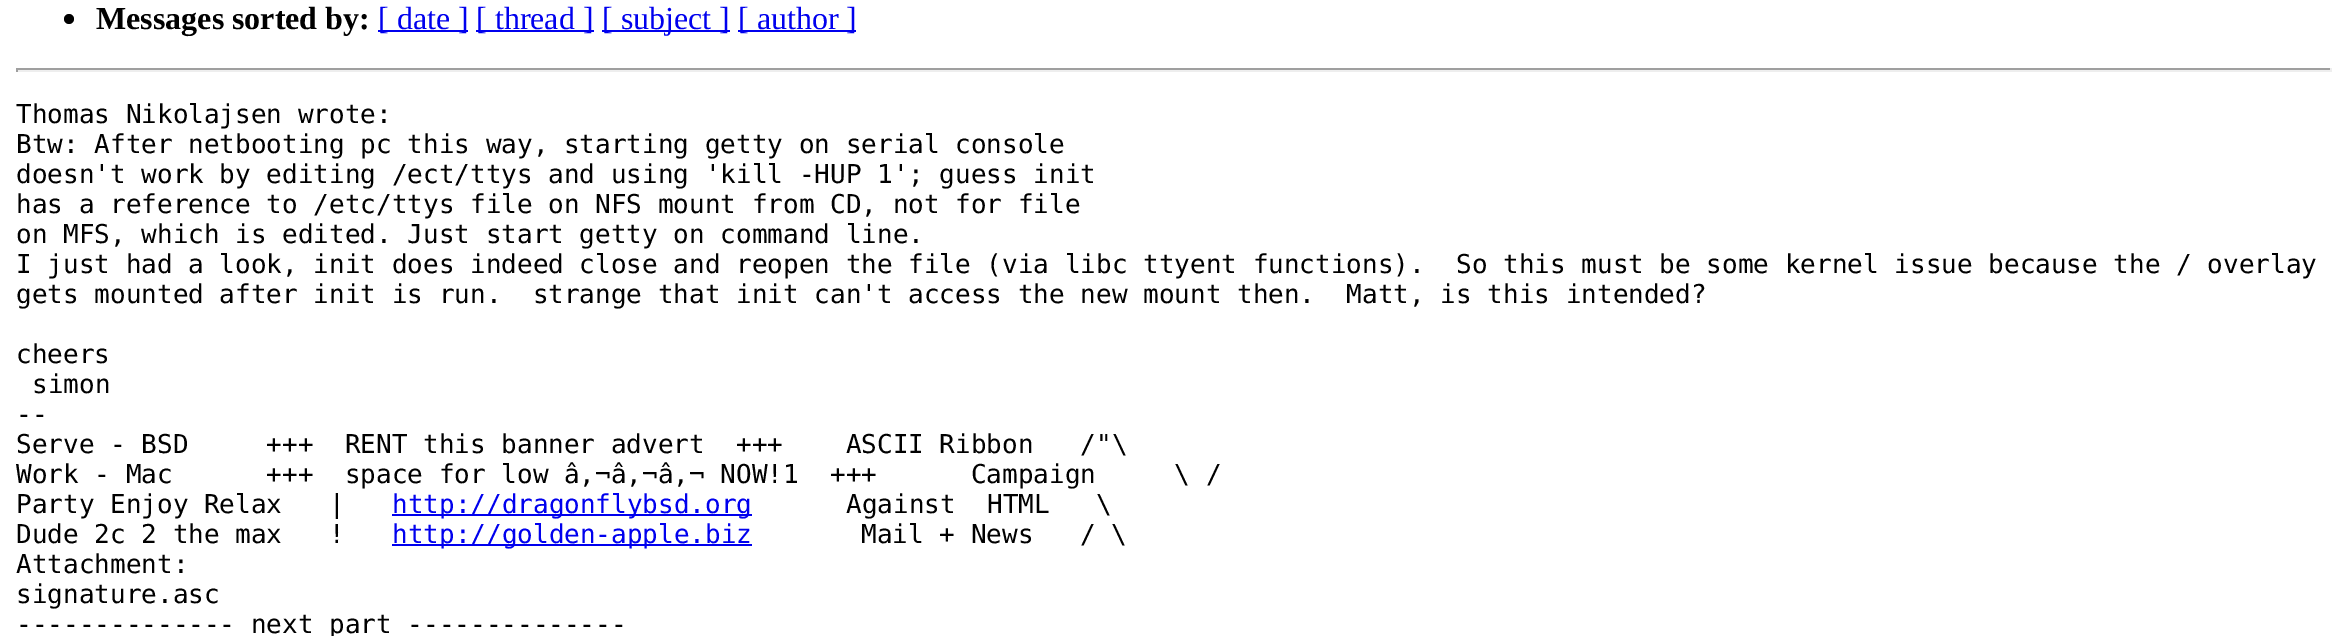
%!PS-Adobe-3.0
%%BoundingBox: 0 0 2347 636
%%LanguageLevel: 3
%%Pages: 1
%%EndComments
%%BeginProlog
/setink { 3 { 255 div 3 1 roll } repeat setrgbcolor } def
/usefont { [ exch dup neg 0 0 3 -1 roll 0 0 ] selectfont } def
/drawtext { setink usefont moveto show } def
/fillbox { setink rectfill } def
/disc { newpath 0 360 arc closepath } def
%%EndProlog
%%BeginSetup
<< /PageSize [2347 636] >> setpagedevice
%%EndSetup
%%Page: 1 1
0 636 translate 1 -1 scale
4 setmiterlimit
0 0 2347 636 255 255 255 fillbox
0 0 0 setink
69 19 5 disc fill
(Messages sorted by:) 96 29 /LiberationSerif-Bold 32 0 0 0 drawtext
378 30 90 2 0 0 238 fillbox
([ date ]) 378 29 /LiberationSerif-Regular 32 0 0 238 drawtext
476 30 118 2 0 0 238 fillbox
([ thread ]) 476 29 /LiberationSerif-Regular 32 0 0 238 drawtext
602 30 128 2 0 0 238 fillbox
([ subject ]) 602 29 /LiberationSerif-Regular 32 0 0 238 drawtext
738 30 118 2 0 0 238 fillbox
([ author ]) 738 29 /LiberationSerif-Regular 32 0 0 238 drawtext
16 68 2316 2 159 159 159 fillbox
2330 68 2 4 238 238 238 fillbox
16 70 2316 2 238 238 238 fillbox
16 68 2 4 159 159 159 fillbox
(Thomas Nikolajsen wrote:) 16 123 /DejaVuSansMono-Regular 26 0 0 0 drawtext
(Btw: After netbooting pc this way, starting getty on serial console) 16 153 /DejaVuSansMono-Regular 26 0 0 0 drawtext
(doesn't work by editing /ect/ttys and using 'kill -HUP 1'; guess init) 16 183 /DejaVuSansMono-Regular 26 0 0 0 drawtext
(has a reference to /etc/ttys file on NFS mount from CD, not for file) 16 213 /DejaVuSansMono-Regular 26 0 0 0 drawtext
(on MFS, which is edited. Just start getty on command line.) 16 243 /DejaVuSansMono-Regular 26 0 0 0 drawtext
(I just had a look, init does indeed close and reopen the file \(via libc ttyent functions\).  So this must be some kernel issue because the / overlay) 16 273 /DejaVuSansMono-Regular 26 0 0 0 drawtext
(gets mounted after init is run.  strange that init can't access the new mount then.  Matt, is this intended?) 16 303 /DejaVuSansMono-Regular 26 0 0 0 drawtext
(cheers) 16 363 /DejaVuSansMono-Regular 26 0 0 0 drawtext
(simon) 32 393 /DejaVuSansMono-Regular 26 0 0 0 drawtext
(--) 16 423 /DejaVuSansMono-Regular 26 0 0 0 drawtext
(Serve - BSD     +++  RENT this banner advert  +++    ASCII Ribbon   /"\\) 16 453 /DejaVuSansMono-Regular 26 0 0 0 drawtext
(Work - Mac      +++  space for low â‚¬â‚¬â‚¬ NOW!1  +++      Campaign     \\ /) 16 483 /DejaVuSansMono-Regular 26 0 0 0 drawtext
(Party Enjoy Relax   |) 16 513 /DejaVuSansMono-Regular 26 0 0 0 drawtext
392 514 360 2 0 0 238 fillbox
(http://dragonflybsd.org) 392 513 /DejaVuSansMono-Regular 26 0 0 238 drawtext
(Against  HTML   \\) 846 513 /DejaVuSansMono-Regular 26 0 0 0 drawtext
(Dude 2c 2 the max   !) 16 543 /DejaVuSansMono-Regular 26 0 0 0 drawtext
392 544 360 2 0 0 238 fillbox
(http://golden-apple.biz) 392 543 /DejaVuSansMono-Regular 26 0 0 238 drawtext
(Mail + News   / \\) 861 543 /DejaVuSansMono-Regular 26 0 0 0 drawtext
(Attachment:) 16 573 /DejaVuSansMono-Regular 26 0 0 0 drawtext
(signature.asc) 16 603 /DejaVuSansMono-Regular 26 0 0 0 drawtext
(-------------- next part --------------) 16 633 /DejaVuSansMono-Regular 26 0 0 0 drawtext
showpage
%%EOF
